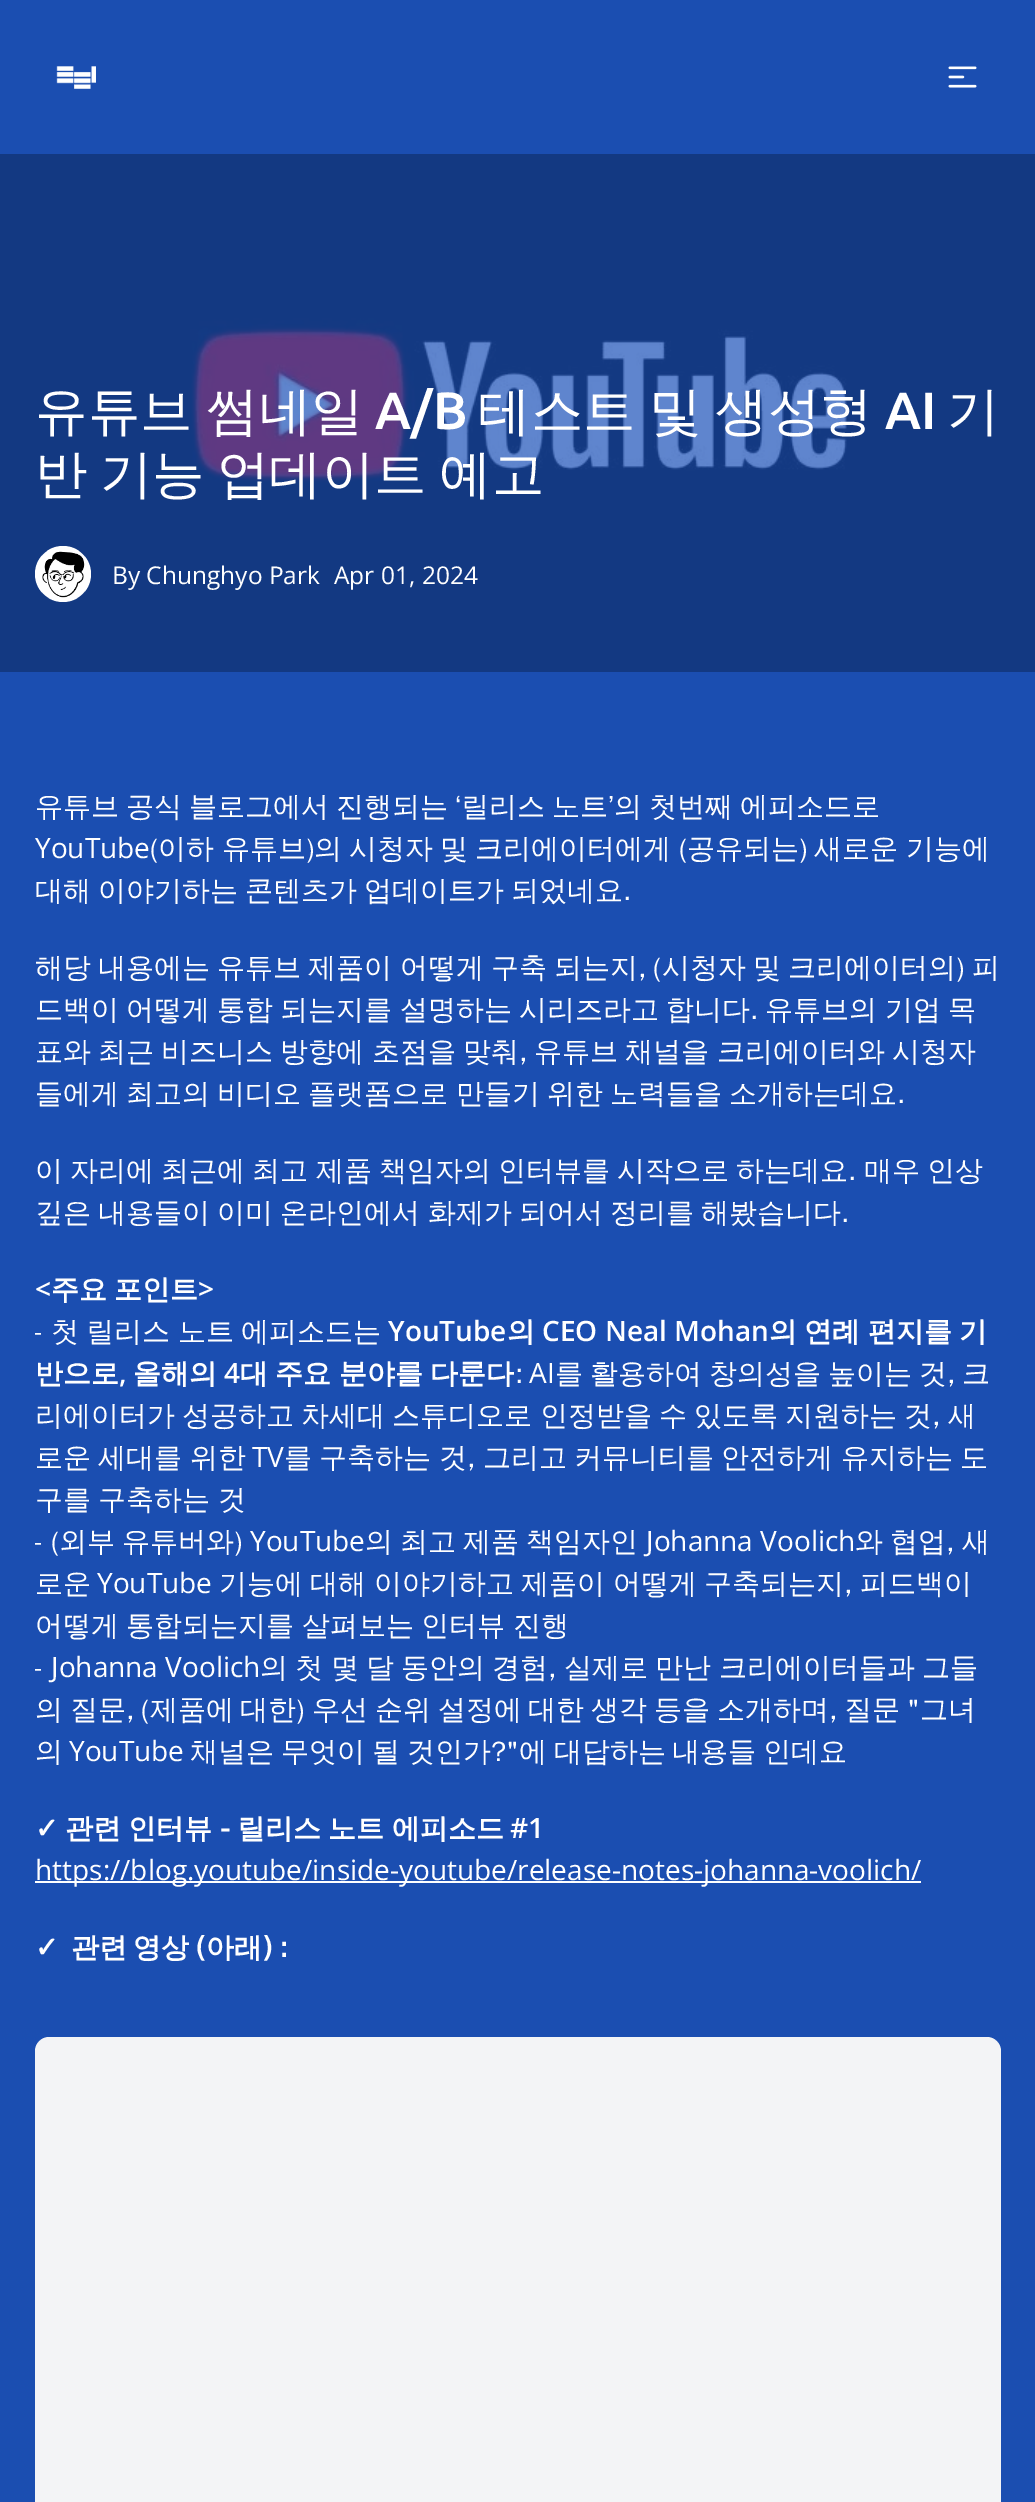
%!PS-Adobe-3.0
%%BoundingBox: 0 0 1035 2502
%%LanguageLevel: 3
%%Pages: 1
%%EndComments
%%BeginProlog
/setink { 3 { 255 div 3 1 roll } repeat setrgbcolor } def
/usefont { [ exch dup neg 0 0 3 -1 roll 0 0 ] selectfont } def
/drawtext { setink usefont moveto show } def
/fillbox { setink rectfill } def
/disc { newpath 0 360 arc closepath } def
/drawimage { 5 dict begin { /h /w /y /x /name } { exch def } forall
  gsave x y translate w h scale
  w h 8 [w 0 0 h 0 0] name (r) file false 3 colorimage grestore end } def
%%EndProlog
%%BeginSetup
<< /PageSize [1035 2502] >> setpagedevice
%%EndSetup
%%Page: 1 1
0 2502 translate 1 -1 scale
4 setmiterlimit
0 0 1035 2502 255 255 255 fillbox
0 0 1035 154 27 78 177 fillbox
(assets/img1.rgb) 56 66 40 23 drawimage
(assets/img2.rgb) 948 66 29 22 drawimage
(assets/img3.rgb) 0 154 1035 518 drawimage
/WenQuanYiZenHei-Medium 52.5 usefont
255 255 255 setink
35 429 moveto -2 0 32 (유튜브 썸네일) widthshow
(A/B) 375 429 /Ubuntu-Medium 52.5 255 255 255 drawtext
/WenQuanYiZenHei-Medium 52.5 usefont
478 429 moveto -2 0 32 (테스트 및 생성형) widthshow
(AI) 885 429 /Ubuntu-Medium 52.5 255 255 255 drawtext
(기) 947 429 /WenQuanYiZenHei-Medium 52.5 255 255 255 drawtext
35 492 moveto -3.5 0 32 (반 기능 업데이트 예고) widthshow
63 574 28 disc fill
(assets/img4.rgb) 42 551 43 47 drawimage
(By Chunghyo Park) 112 584 /OpenSans-Regular 24.5 255 255 255 drawtext
(Apr 01, 2024) 334 584 /OpenSans-Regular 24.5 255 255 255 drawtext
0 672 1035 1830 27 78 177 fillbox
/WenQuanYiZenHei-Medium 28 usefont
255 255 255 setink
35 816 moveto -1.5 0 32 (유튜브 공식 블로그에서 진행되는 ‘릴리스 노트’의 첫번째 에피소드로) widthshow
(YouTube) 35 858 /OpenSans-Regular 28 255 255 255 drawtext
/WenQuanYiZenHei-Medium 28 usefont
150 858 moveto -1.25 0 32 (\(이하 유튜브\)의 시청자 및 크리에이터에게 \(공유되는\) 새로운 기능에) widthshow
35 900 moveto -1.5 0 32 (대해 이야기하는 콘텐츠가 업데이트가 되었네요.) widthshow
35 977 moveto -1.25 0 32 (해당 내용에는 유튜브 제품이 어떻게 구축 되는지, \(시청자 및 크리에이터의\) 피) widthshow
35 1019 moveto -1.25 0 32 (드백이 어떻게 통합 되는지를 설명하는 시리즈라고 합니다. 유튜브의 기업 목) widthshow
35 1061 moveto -1.25 0 32 (표와 최근 비즈니스 방향에 초점을 맞춰, 유튜브 채널을 크리에이터와 시청자) widthshow
35 1103 moveto -1.25 0 32 (들에게 최고의 비디오 플랫폼으로 만들기 위한 노력들을 소개하는데요.) widthshow
35 1180 moveto -1.25 0 32 (이 자리에 최근에 최고 제품 책임자의 인터뷰를 시작으로 하는데요. 매우 인상) widthshow
35 1222 moveto -1.25 0 32 (깊은 내용들이 이미 온라인에서 화제가 되어서 정리를 해봤습니다.) widthshow
(<) 35 1299 /OpenSans-SemiBold 28 255 255 255 drawtext
/WenQuanYiZenHei-Bold 28 usefont
51 1299 moveto -1 0 32 (주요 포인트) widthshow
(>) 198 1299 /OpenSans-SemiBold 28 255 255 255 drawtext
/WenQuanYiZenHei-Medium 28 usefont
35 1341 moveto -1 0 32 (- 첫 릴리스 노트 에피소드는) widthshow
(YouTube) 388 1341 /OpenSans-SemiBold 28 255 255 255 drawtext
(의) 507 1341 /WenQuanYiZenHei-Bold 28 255 255 255 drawtext
(CEO Neal Mohan) 542 1341 /OpenSans-SemiBold 28 255 255 255 drawtext
(의) 769 1341 /WenQuanYiZenHei-Bold 28 255 255 255 drawtext
(연례) 804 1341 /WenQuanYiZenHei-Bold 28 255 255 255 drawtext
(편지를) 868 1341 /WenQuanYiZenHei-Bold 28 255 255 255 drawtext
(기) 959 1341 /WenQuanYiZenHei-Bold 28 255 255 255 drawtext
(반으로) 35 1383 /WenQuanYiZenHei-Bold 28 255 255 255 drawtext
(,) 119 1383 /OpenSans-SemiBold 28 255 255 255 drawtext
(올해의) 133 1383 /WenQuanYiZenHei-Bold 28 255 255 255 drawtext
(4) 224 1383 /OpenSans-SemiBold 28 255 255 255 drawtext
/WenQuanYiZenHei-Bold 28 usefont
240 1383 moveto -1 0 32 (대 주요 분야를 다룬다) widthshow
(:) 515 1383 /WenQuanYiZenHei-Medium 28 255 255 255 drawtext
(AI) 529 1383 /OpenSans-Regular 28 255 255 255 drawtext
/WenQuanYiZenHei-Medium 28 usefont
555 1383 moveto -1.5 0 32 (를 활용하여 창의성을 높이는 것, 크) widthshow
35 1425 moveto -1.25 0 32 (리에이터가 성공하고 차세대 스튜디오로 인정받을 수 있도록 지원하는 것, 새) widthshow
35 1467 moveto -1 0 32 (로운 세대를 위한) widthshow
(TV) 252 1467 /OpenSans-Regular 28 255 255 255 drawtext
/WenQuanYiZenHei-Medium 28 usefont
284 1467 moveto -1 0 32 (를 구축하는 것, 그리고 커뮤니티를 안전하게 유지하는 도) widthshow
35 1509 moveto -1 0 32 (구를 구축하는 것) widthshow
(-) 35 1551 /WenQuanYiZenHei-Medium 28 255 255 255 drawtext
(\(외부) 51 1551 /WenQuanYiZenHei-Medium 28 255 255 255 drawtext
(유튜버와\)) 122 1551 /WenQuanYiZenHei-Medium 28 255 255 255 drawtext
(YouTube) 250 1551 /OpenSans-Regular 28 255 255 255 drawtext
(의) 365 1551 /WenQuanYiZenHei-Medium 28 255 255 255 drawtext
(최고) 400 1551 /WenQuanYiZenHei-Medium 28 255 255 255 drawtext
(제품) 463 1551 /WenQuanYiZenHei-Medium 28 255 255 255 drawtext
(책임자인) 526 1551 /WenQuanYiZenHei-Medium 28 255 255 255 drawtext
(Johanna Voolich) 646 1551 /OpenSans-Regular 28 255 255 255 drawtext
(와) 855 1551 /WenQuanYiZenHei-Medium 28 255 255 255 drawtext
(협업,) 890 1551 /WenQuanYiZenHei-Medium 28 255 255 255 drawtext
(새) 962 1551 /WenQuanYiZenHei-Medium 28 255 255 255 drawtext
(로운) 35 1593 /WenQuanYiZenHei-Medium 28 255 255 255 drawtext
(YouTube) 97 1593 /OpenSans-Regular 28 255 255 255 drawtext
/WenQuanYiZenHei-Medium 28 usefont
219 1593 moveto -1 0 32 (기능에 대해 이야기하고 제품이 어떻게 구축되는지, 피드백이) widthshow
35 1635 moveto -1 0 32 (어떻게 통합되는지를 살펴보는 인터뷰 진행) widthshow
(-) 35 1677 /WenQuanYiZenHei-Medium 28 255 255 255 drawtext
(Johanna Voolich) 51 1677 /OpenSans-Regular 28 255 255 255 drawtext
(의) 260 1677 /WenQuanYiZenHei-Medium 28 255 255 255 drawtext
(첫) 295 1677 /WenQuanYiZenHei-Medium 28 255 255 255 drawtext
(몇) 331 1677 /WenQuanYiZenHei-Medium 28 255 255 255 drawtext
(달) 366 1677 /WenQuanYiZenHei-Medium 28 255 255 255 drawtext
(동안의) 401 1677 /WenQuanYiZenHei-Medium 28 255 255 255 drawtext
(경험,) 492 1677 /WenQuanYiZenHei-Medium 28 255 255 255 drawtext
(실제로) 564 1677 /WenQuanYiZenHei-Medium 28 255 255 255 drawtext
(만난) 655 1677 /WenQuanYiZenHei-Medium 28 255 255 255 drawtext
(크리에이터들과) 719 1677 /WenQuanYiZenHei-Medium 28 255 255 255 drawtext
(그들) 922 1677 /WenQuanYiZenHei-Medium 28 255 255 255 drawtext
35 1719 moveto -1.5 0 32 (의 질문, \(제품에 대한\) 우선 순위 설정에 대한 생각 등을 소개하며, 질문 "그녀) widthshow
(의) 35 1761 /WenQuanYiZenHei-Medium 28 255 255 255 drawtext
(YouTube) 69 1761 /OpenSans-Regular 28 255 255 255 drawtext
/WenQuanYiZenHei-Medium 28 usefont
190 1761 moveto -1.5 0 32 (채널은 무엇이 될 것인가?"에 대답하는 내용들 인데요) widthshow
(✓) 35 1838 /DejaVuSans-Bold 28 255 255 255 drawtext
/WenQuanYiZenHei-Bold 28 usefont
65 1838 moveto -1 0 32 (관련 인터뷰) widthshow
(-) 220 1838 /DejaVuSans-Bold 28 255 255 255 drawtext
/WenQuanYiZenHei-Bold 28 usefont
237 1838 moveto -1 0 32 (릴리스 노트 에피소드) widthshow
(#1) 510 1838 /OpenSans-SemiBold 28 255 255 255 drawtext
35 1881 886 2 255 255 255 fillbox
(https://blog.youtube/inside-youtube/release-notes-johanna-voolich/) 35 1880 /OpenSans-Regular 28 255 255 255 drawtext
(✓) 35 1957 /DejaVuSans-Bold 28 255 255 255 drawtext
(관련) 71 1957 /WenQuanYiZenHei-Bold 28 255 255 255 drawtext
(영상) 133 1957 /WenQuanYiZenHei-Bold 28 255 255 255 drawtext
(\() 195 1957 /DejaVuSans-Bold 28 255 255 255 drawtext
(아래) 206 1957 /WenQuanYiZenHei-Bold 28 255 255 255 drawtext
(\)) 262 1957 /DejaVuSans-Bold 28 255 255 255 drawtext
(:) 279 1957 /DejaVuSans-Bold 28 255 255 255 drawtext
243 244 246 setink
49 2037 moveto 987 2037 lineto 994.5 2037 1001 2043.5 1001 2051 curveto 1001 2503 lineto 35 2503 lineto 35 2051 lineto 35 2043.5 41.5 2037 49 2037 curveto closepath fill
showpage
%%EOF
